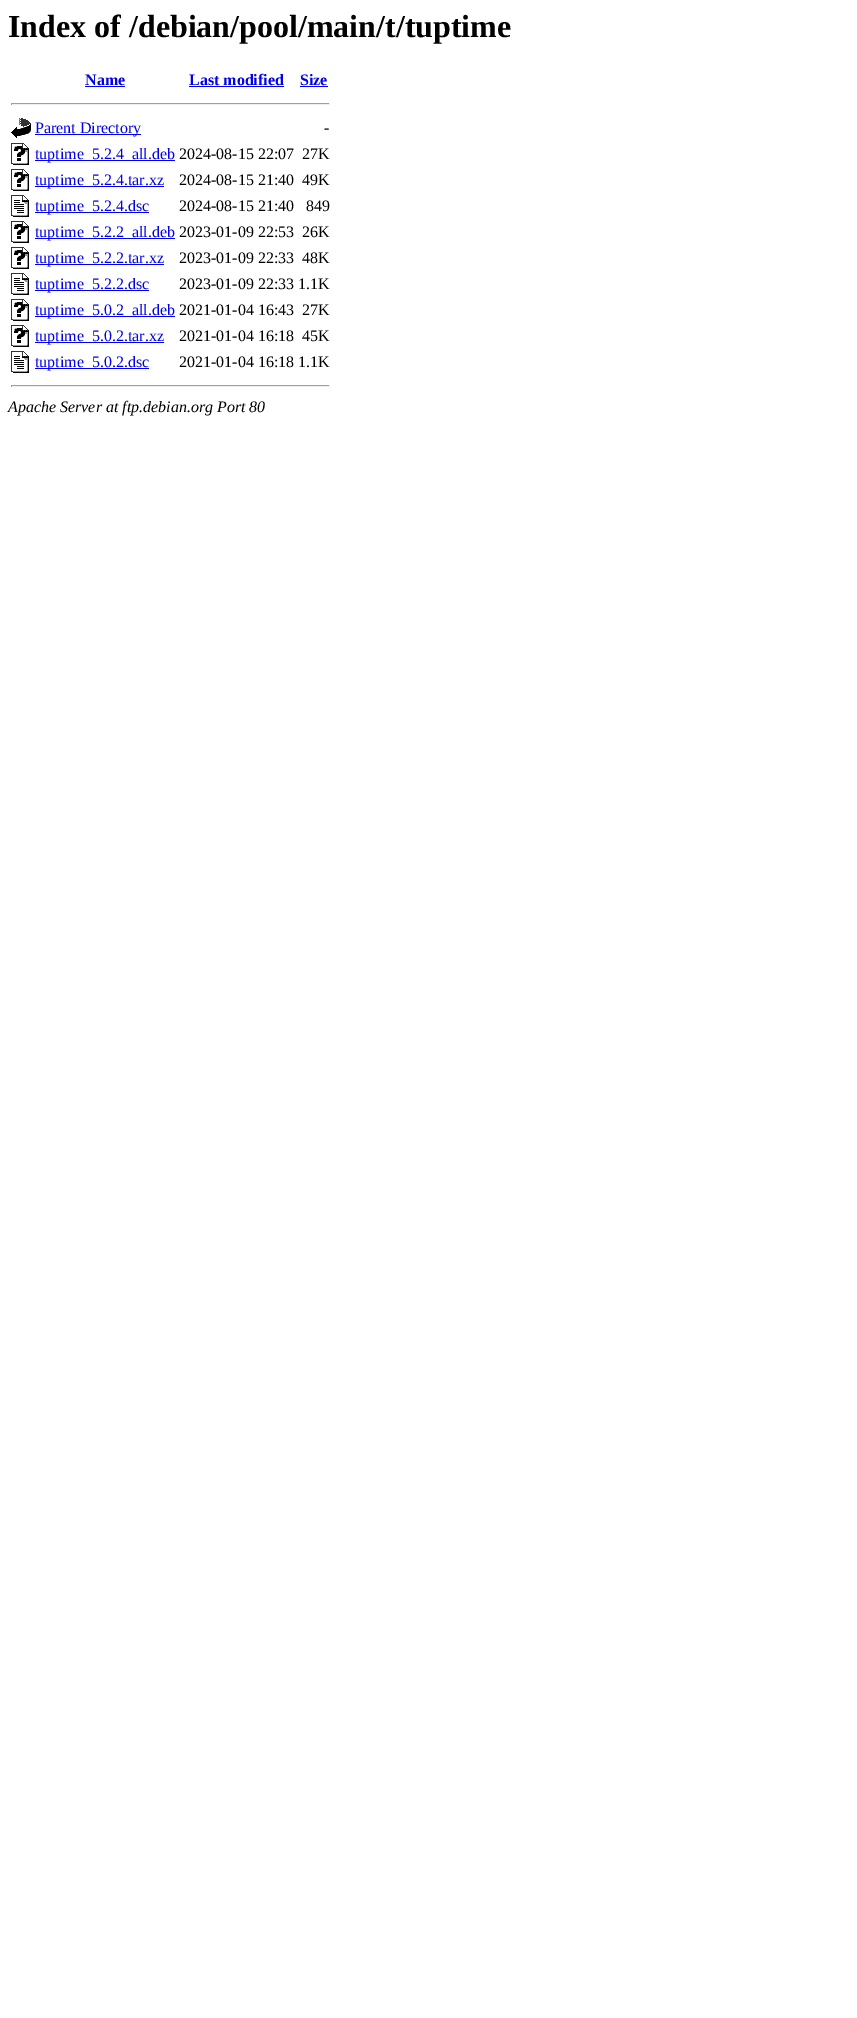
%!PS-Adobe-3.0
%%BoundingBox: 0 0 857 2018
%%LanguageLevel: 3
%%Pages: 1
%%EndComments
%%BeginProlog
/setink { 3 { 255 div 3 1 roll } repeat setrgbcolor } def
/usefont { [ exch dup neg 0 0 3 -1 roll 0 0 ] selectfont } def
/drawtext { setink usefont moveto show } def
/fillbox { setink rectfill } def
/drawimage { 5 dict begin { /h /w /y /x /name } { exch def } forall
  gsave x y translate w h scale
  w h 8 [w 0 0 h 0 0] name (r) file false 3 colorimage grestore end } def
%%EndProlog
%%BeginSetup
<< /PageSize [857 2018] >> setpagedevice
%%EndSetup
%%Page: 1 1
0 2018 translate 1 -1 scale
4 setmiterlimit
0 0 857 2018 255 255 255 fillbox
(Index of /debian/pool/main/t/tuptime) 8 37 /LiberationSerif-Bold 32 0 0 0 drawtext
(Name) 85 85 /LiberationSerif-Bold 16 0 0 238 drawtext
85 86 40 1 0 0 238 fillbox
(Last modified) 189 85 /LiberationSerif-Bold 16 0 0 238 drawtext
189 86 95 1 0 0 238 fillbox
(Size) 300 85 /LiberationSerif-Bold 16 0 0 238 drawtext
300 86 28 1 0 0 238 fillbox
11 103 319 1 159 159 159 fillbox
329 103 1 2 238 238 238 fillbox
11 104 319 1 238 238 238 fillbox
11 103 1 2 159 159 159 fillbox
(assets/img1.rgb) 11 118 20 20 drawimage
35 134 106 1 0 0 238 fillbox
(Parent Directory) 35 133 /LiberationSerif-Regular 16 0 0 238 drawtext
(-) 324 133 /LiberationSerif-Regular 16 0 0 0 drawtext
(assets/img2.rgb) 11 143 18 22 drawimage
35 160 140 1 0 0 238 fillbox
(tuptime_5.2.4_all.deb) 35 159 /LiberationSerif-Regular 16 0 0 238 drawtext
(2024-08-15 22:07) 179 159 /LiberationSerif-Regular 16 0 0 0 drawtext
(27K) 302 159 /LiberationSerif-Regular 16 0 0 0 drawtext
(assets/img2.rgb) 11 169 18 22 drawimage
35 186 129 1 0 0 238 fillbox
(tuptime_5.2.4.tar.xz) 35 185 /LiberationSerif-Regular 16 0 0 238 drawtext
(2024-08-15 21:40) 179 185 /LiberationSerif-Regular 16 0 0 0 drawtext
(49K) 302 185 /LiberationSerif-Regular 16 0 0 0 drawtext
(assets/img3.rgb) 11 195 18 22 drawimage
35 212 114 1 0 0 238 fillbox
(tuptime_5.2.4.dsc) 35 211 /LiberationSerif-Regular 16 0 0 238 drawtext
(2024-08-15 21:40) 179 211 /LiberationSerif-Regular 16 0 0 0 drawtext
(849) 306 211 /LiberationSerif-Regular 16 0 0 0 drawtext
(assets/img2.rgb) 11 221 18 22 drawimage
35 238 140 1 0 0 238 fillbox
(tuptime_5.2.2_all.deb) 35 237 /LiberationSerif-Regular 16 0 0 238 drawtext
(2023-01-09 22:53) 179 237 /LiberationSerif-Regular 16 0 0 0 drawtext
(26K) 302 237 /LiberationSerif-Regular 16 0 0 0 drawtext
(assets/img2.rgb) 11 247 18 22 drawimage
35 264 129 1 0 0 238 fillbox
(tuptime_5.2.2.tar.xz) 35 263 /LiberationSerif-Regular 16 0 0 238 drawtext
(2023-01-09 22:33) 179 263 /LiberationSerif-Regular 16 0 0 0 drawtext
(48K) 302 263 /LiberationSerif-Regular 16 0 0 0 drawtext
(assets/img3.rgb) 11 273 18 22 drawimage
35 290 114 1 0 0 238 fillbox
(tuptime_5.2.2.dsc) 35 289 /LiberationSerif-Regular 16 0 0 238 drawtext
(2023-01-09 22:33 1.1K) 179 289 /LiberationSerif-Regular 16 0 0 0 drawtext
(assets/img2.rgb) 11 299 18 22 drawimage
35 316 140 1 0 0 238 fillbox
(tuptime_5.0.2_all.deb) 35 315 /LiberationSerif-Regular 16 0 0 238 drawtext
(2021-01-04 16:43) 179 315 /LiberationSerif-Regular 16 0 0 0 drawtext
(27K) 302 315 /LiberationSerif-Regular 16 0 0 0 drawtext
(assets/img2.rgb) 11 325 18 22 drawimage
35 342 129 1 0 0 238 fillbox
(tuptime_5.0.2.tar.xz) 35 341 /LiberationSerif-Regular 16 0 0 238 drawtext
(2021-01-04 16:18) 179 341 /LiberationSerif-Regular 16 0 0 0 drawtext
(45K) 302 341 /LiberationSerif-Regular 16 0 0 0 drawtext
(assets/img3.rgb) 11 351 18 22 drawimage
35 368 114 1 0 0 238 fillbox
(tuptime_5.0.2.dsc) 35 367 /LiberationSerif-Regular 16 0 0 238 drawtext
(2021-01-04 16:18 1.1K) 179 367 /LiberationSerif-Regular 16 0 0 0 drawtext
11 385 319 1 159 159 159 fillbox
329 385 1 2 238 238 238 fillbox
11 386 319 1 238 238 238 fillbox
11 385 1 2 159 159 159 fillbox
(Apache Server at ftp.debian.org Port 80) 8 412 /LiberationSerif-Italic 16 0 0 0 drawtext
showpage
%%EOF
